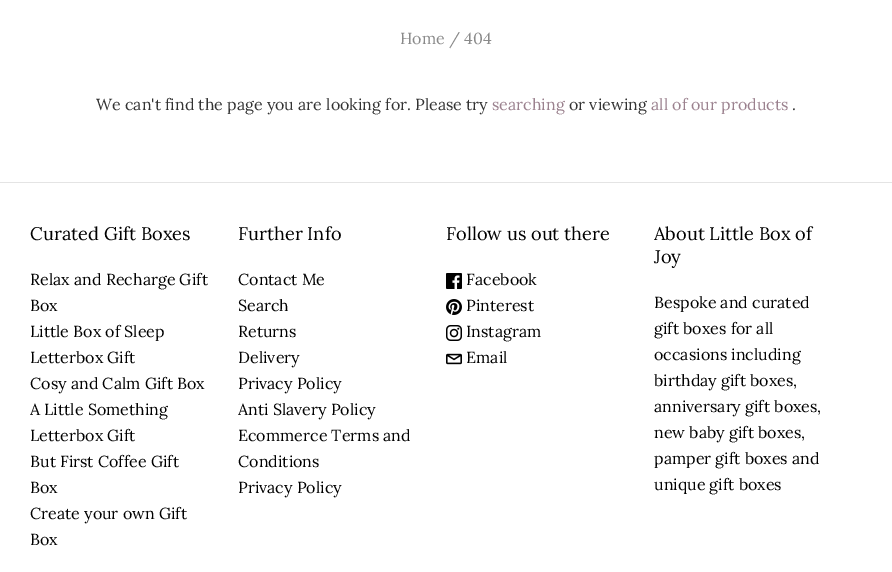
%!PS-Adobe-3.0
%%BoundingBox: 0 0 892 572
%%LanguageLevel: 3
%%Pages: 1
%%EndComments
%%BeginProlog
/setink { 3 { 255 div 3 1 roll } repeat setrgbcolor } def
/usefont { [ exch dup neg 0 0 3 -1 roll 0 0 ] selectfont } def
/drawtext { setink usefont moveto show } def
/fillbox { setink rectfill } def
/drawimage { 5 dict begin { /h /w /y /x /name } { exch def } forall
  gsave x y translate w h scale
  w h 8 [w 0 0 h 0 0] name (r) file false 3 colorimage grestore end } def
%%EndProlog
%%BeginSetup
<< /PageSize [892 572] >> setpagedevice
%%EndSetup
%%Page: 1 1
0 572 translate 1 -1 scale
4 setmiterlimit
0 0 892 572 255 255 255 fillbox
(Home / 404) 400 44 /Lora-Regular 16 138 138 138 drawtext
(We can't find the page you are looking for. Please try) 96 110 /Lora-Regular 16 51 51 51 drawtext
(searching) 492 110 /Lora-Regular 16 155 129 142 drawtext
(or viewing) 569 110 /Lora-Regular 16 51 51 51 drawtext
(all of our products) 651 110 /Lora-Regular 16 155 129 142 drawtext
(.) 792 110 /Lora-Regular 16 51 51 51 drawtext
0 182 892 1 228 228 228 fillbox
(Curated Gift Boxes) 30 240 /Lora-Regular 18.25 0 0 0 drawtext
(Relax and Recharge Gift) 30 285 /Lora-Regular 16 0 0 0 drawtext
(Box) 30 311 /Lora-Regular 16 0 0 0 drawtext
(Little Box of Sleep) 30 337 /Lora-Regular 16 0 0 0 drawtext
(Letterbox Gift) 30 363 /Lora-Regular 16 0 0 0 drawtext
(Cosy and Calm Gift Box) 30 389 /Lora-Regular 16 0 0 0 drawtext
(A Little Something) 30 415 /Lora-Regular 16 0 0 0 drawtext
(Letterbox Gift) 30 441 /Lora-Regular 16 0 0 0 drawtext
(But First Coffee Gift) 30 467 /Lora-Regular 16 0 0 0 drawtext
(Box) 30 493 /Lora-Regular 16 0 0 0 drawtext
(Create your own Gift) 30 519 /Lora-Regular 16 0 0 0 drawtext
(Box) 30 545 /Lora-Regular 16 0 0 0 drawtext
(Further Info) 238 240 /Lora-Regular 18.25 0 0 0 drawtext
(Contact Me) 238 285 /Lora-Regular 16 0 0 0 drawtext
(Search) 238 311 /Lora-Regular 16 0 0 0 drawtext
(Returns) 238 337 /Lora-Regular 16 0 0 0 drawtext
(Delivery) 238 363 /Lora-Regular 16 0 0 0 drawtext
(Privacy Policy) 238 389 /Lora-Regular 16 0 0 0 drawtext
(Anti Slavery Policy) 238 415 /Lora-Regular 16 0 0 0 drawtext
(Ecommerce Terms and) 238 441 /Lora-Regular 16 0 0 0 drawtext
(Conditions) 238 467 /Lora-Regular 16 0 0 0 drawtext
(Privacy Policy) 238 493 /Lora-Regular 16 0 0 0 drawtext
(Follow us out there) 446 240 /Lora-Regular 18.25 0 0 0 drawtext
(assets/img1.rgb) 446 273 16 16 drawimage
(Facebook) 466 285 /Lora-Regular 16 0 0 0 drawtext
(assets/img2.rgb) 446 299 16 16 drawimage
(Pinterest) 466 311 /Lora-Regular 16 0 0 0 drawtext
(assets/img3.rgb) 446 325 16 16 drawimage
(Instagram) 466 337 /Lora-Regular 16 0 0 0 drawtext
(assets/img4.rgb) 446 353 16 12 drawimage
(Email) 466 363 /Lora-Regular 16 0 0 0 drawtext
(About Little Box of) 654 240 /Lora-Regular 18.25 0 0 0 drawtext
(Joy) 654 263 /Lora-Regular 18.25 0 0 0 drawtext
(Bespoke and curated) 654 308 /Lora-Regular 16 0 0 0 drawtext
(gift boxes for all) 654 334 /Lora-Regular 16 0 0 0 drawtext
(occasions including) 654 360 /Lora-Regular 16 0 0 0 drawtext
(birthday gift boxes,) 654 386 /Lora-Regular 16 0 0 0 drawtext
(anniversary gift boxes,) 654 412 /Lora-Regular 16 0 0 0 drawtext
(new baby gift boxes,) 654 438 /Lora-Regular 16 0 0 0 drawtext
(pamper gift boxes and) 654 464 /Lora-Regular 16 0 0 0 drawtext
(unique gift boxes) 654 490 /Lora-Regular 16 0 0 0 drawtext
showpage
%%EOF
